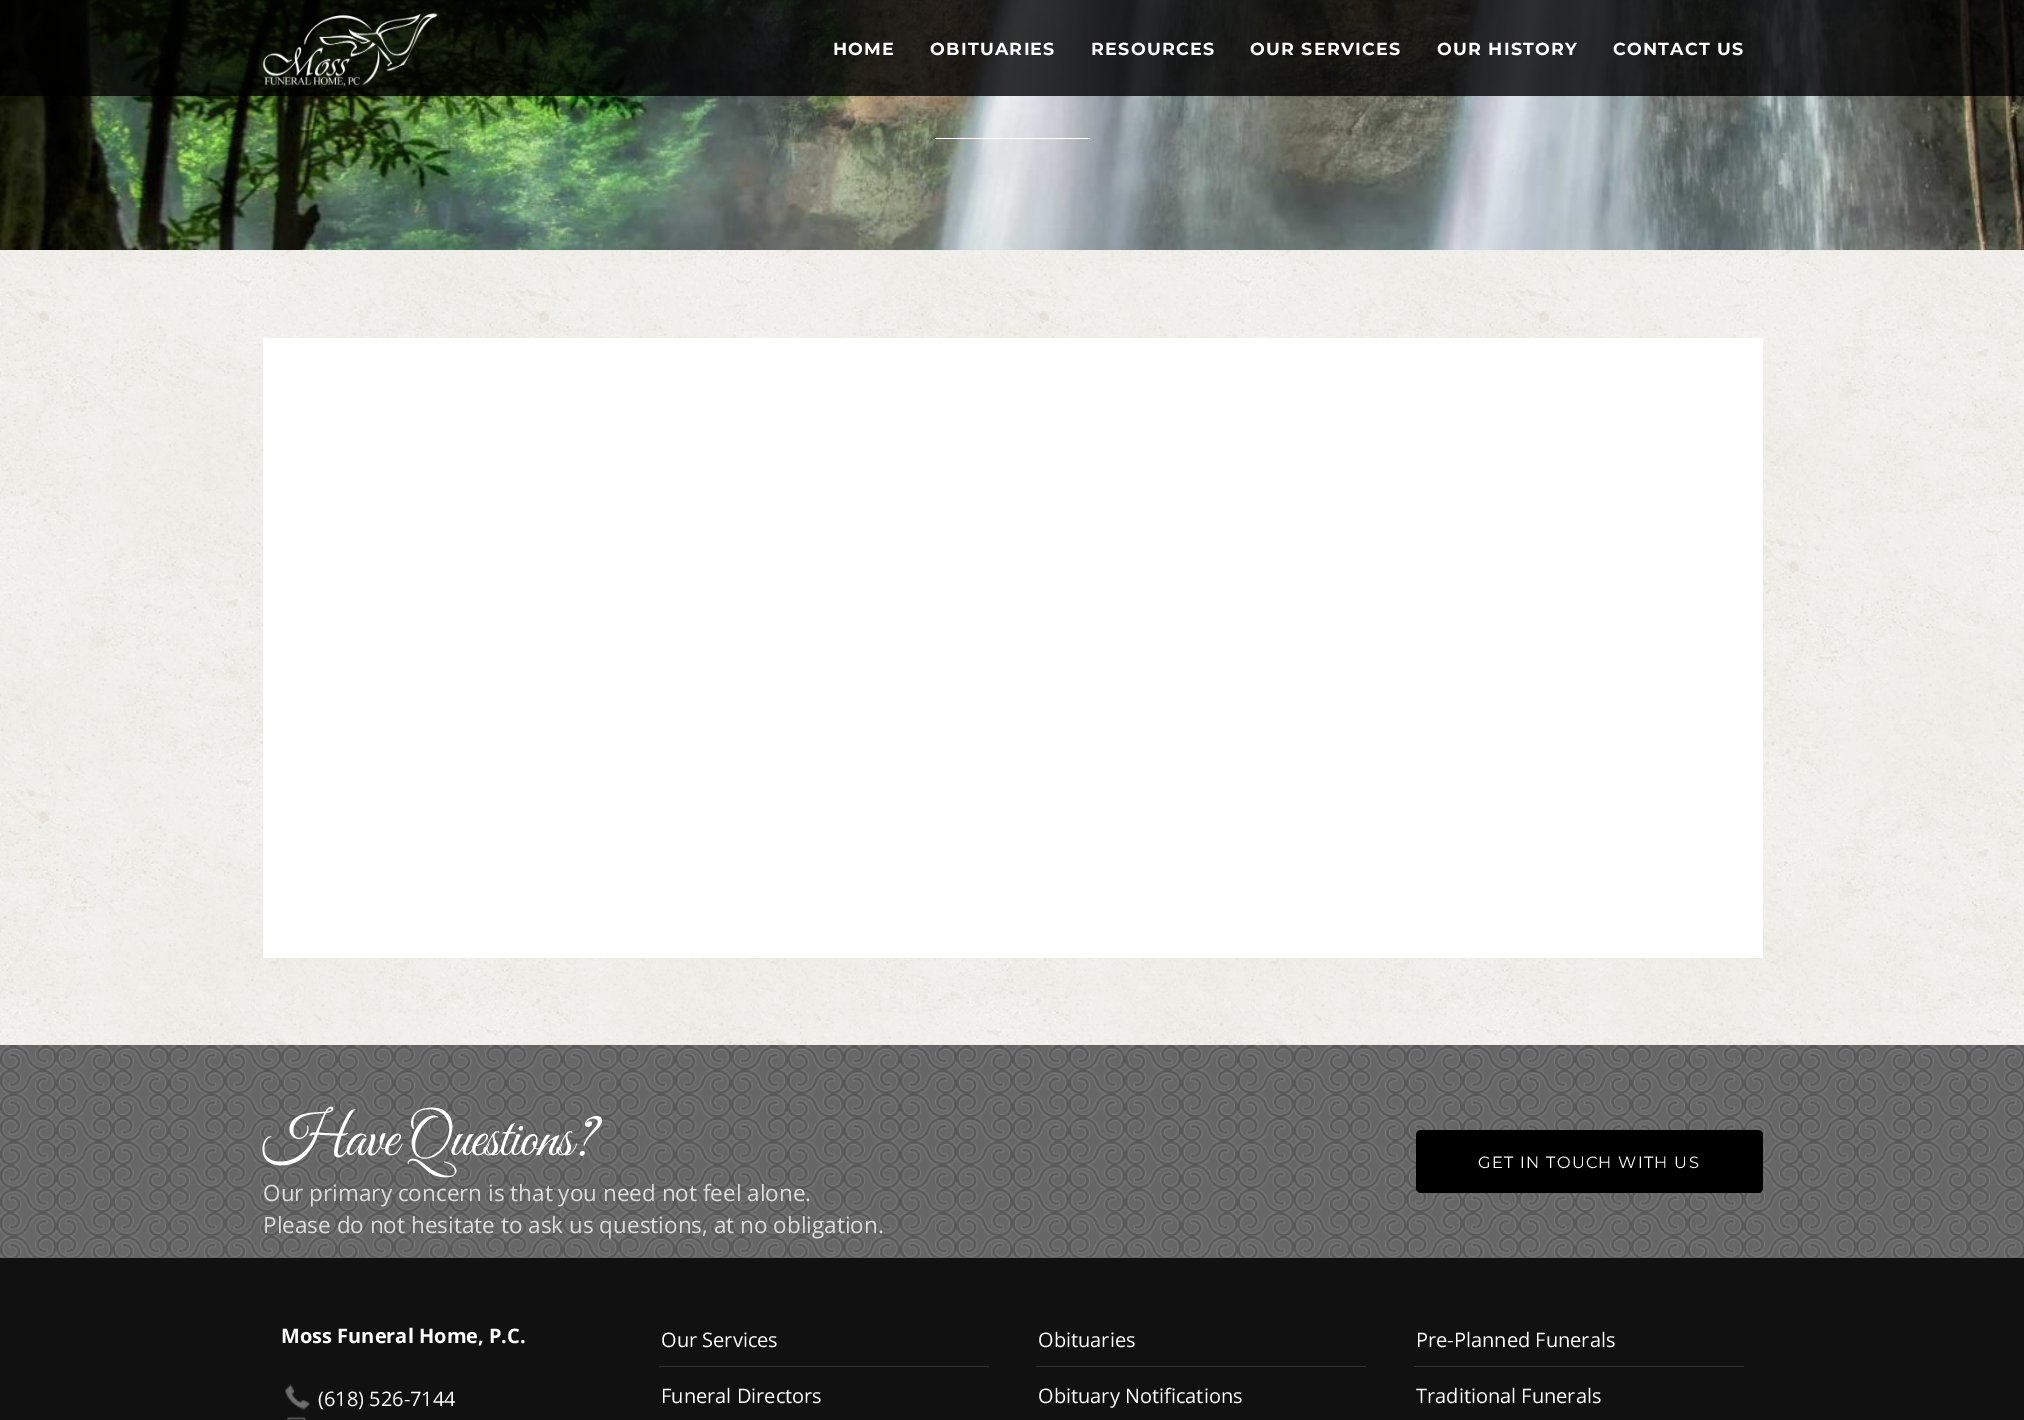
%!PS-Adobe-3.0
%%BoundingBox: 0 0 2024 1420
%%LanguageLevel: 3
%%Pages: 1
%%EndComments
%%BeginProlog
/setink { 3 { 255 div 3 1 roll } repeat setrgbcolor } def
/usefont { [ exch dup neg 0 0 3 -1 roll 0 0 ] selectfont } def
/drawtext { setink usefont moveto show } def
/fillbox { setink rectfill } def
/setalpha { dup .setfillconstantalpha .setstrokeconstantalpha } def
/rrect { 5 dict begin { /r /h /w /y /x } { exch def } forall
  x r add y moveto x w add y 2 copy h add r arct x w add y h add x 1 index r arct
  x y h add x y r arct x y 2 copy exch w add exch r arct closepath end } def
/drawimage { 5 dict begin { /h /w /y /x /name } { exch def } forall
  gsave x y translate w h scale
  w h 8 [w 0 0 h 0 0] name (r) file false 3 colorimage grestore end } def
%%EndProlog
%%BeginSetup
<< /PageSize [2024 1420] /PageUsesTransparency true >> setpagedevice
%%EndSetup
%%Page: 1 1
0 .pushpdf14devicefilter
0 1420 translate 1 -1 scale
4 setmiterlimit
0 0 2024 1420 255 255 255 fillbox
(assets/img1.rgb) 0 250 2024 795 drawimage
(assets/img2.rgb) 0 0 2024 250 drawimage
0.8 setalpha
0 0 2024 96 0 0 0 fillbox
1 setalpha
(assets/img3.rgb) 262 13 176 74 drawimage
/Montserrat-Bold 17.5 usefont
255 255 255 setink
833 55 moveto 1.25 0 (HOME) ashow
930 55 moveto 1.25 0 (OBITUARIES) ashow
1091 55 moveto 1.25 0 (RESOURCES) ashow
1250 55 moveto 1.25 0 (OUR SERVICES) ashow
1437 55 moveto 1.25 0 (OUR HISTORY) ashow
1613 55 moveto 1.25 0 (CONTACT US) ashow
935 138 155 1 255 255 255 fillbox
263 338 1500 620 255 255 255 fillbox
0 1258 2024 162 17 17 17 fillbox
0 1045 2024 213 102 102 102 fillbox
(assets/img4.rgb) 0 1045 2024 213 drawimage
0.03 setalpha
0 1045 2024 1 0 0 0 fillbox
/GreatVibes-Regular 60 usefont
1 setalpha
255 255 255 setink
263 1155 moveto -1.25 0 (Have Questions?) ashow
0 0 0 setink
1416 1130 347 63 5 rrect fill
/Montserrat-Regular 16.25 usefont
255 255 255 setink
1478 1168 moveto 1.25 0 (GET IN TOUCH WITH US) ashow
(Our primary concern is that you need not feel alone.) 263 1201 /OpenSans-Regular 22.5 221 221 221 drawtext
(Please do not hesitate to ask us questions, at no obligation.) 263 1233 /OpenSans-Regular 22.5 221 221 221 drawtext
(Moss Funeral Home, P.C.) 281 1343 /OpenSans-Bold 20 255 255 255 drawtext
(assets/img5.rgb) 285 1384 25 26 drawimage
(\(618\) 526-7144) 318 1406 /OpenSans-Regular 20 255 255 255 drawtext
(assets/img6.rgb) 286 1417 21 3 drawimage
659 1366 330 1 50 50 50 fillbox
(Our Services) 661 1347 /OpenSans-Regular 20 255 255 255 drawtext
(Funeral Directors) 661 1403 /OpenSans-Regular 20 255 255 255 drawtext
1036 1366 330 1 50 50 50 fillbox
(Obituaries) 1038 1347 /OpenSans-Regular 20 255 255 255 drawtext
(Obituary Notifications) 1038 1403 /OpenSans-Regular 20 255 255 255 drawtext
1414 1366 330 1 50 50 50 fillbox
(Pre-Planned Funerals) 1416 1347 /OpenSans-Regular 20 255 255 255 drawtext
(Traditional Funerals) 1416 1403 /OpenSans-Regular 20 255 255 255 drawtext
.poppdf14devicefilter showpage
%%EOF
